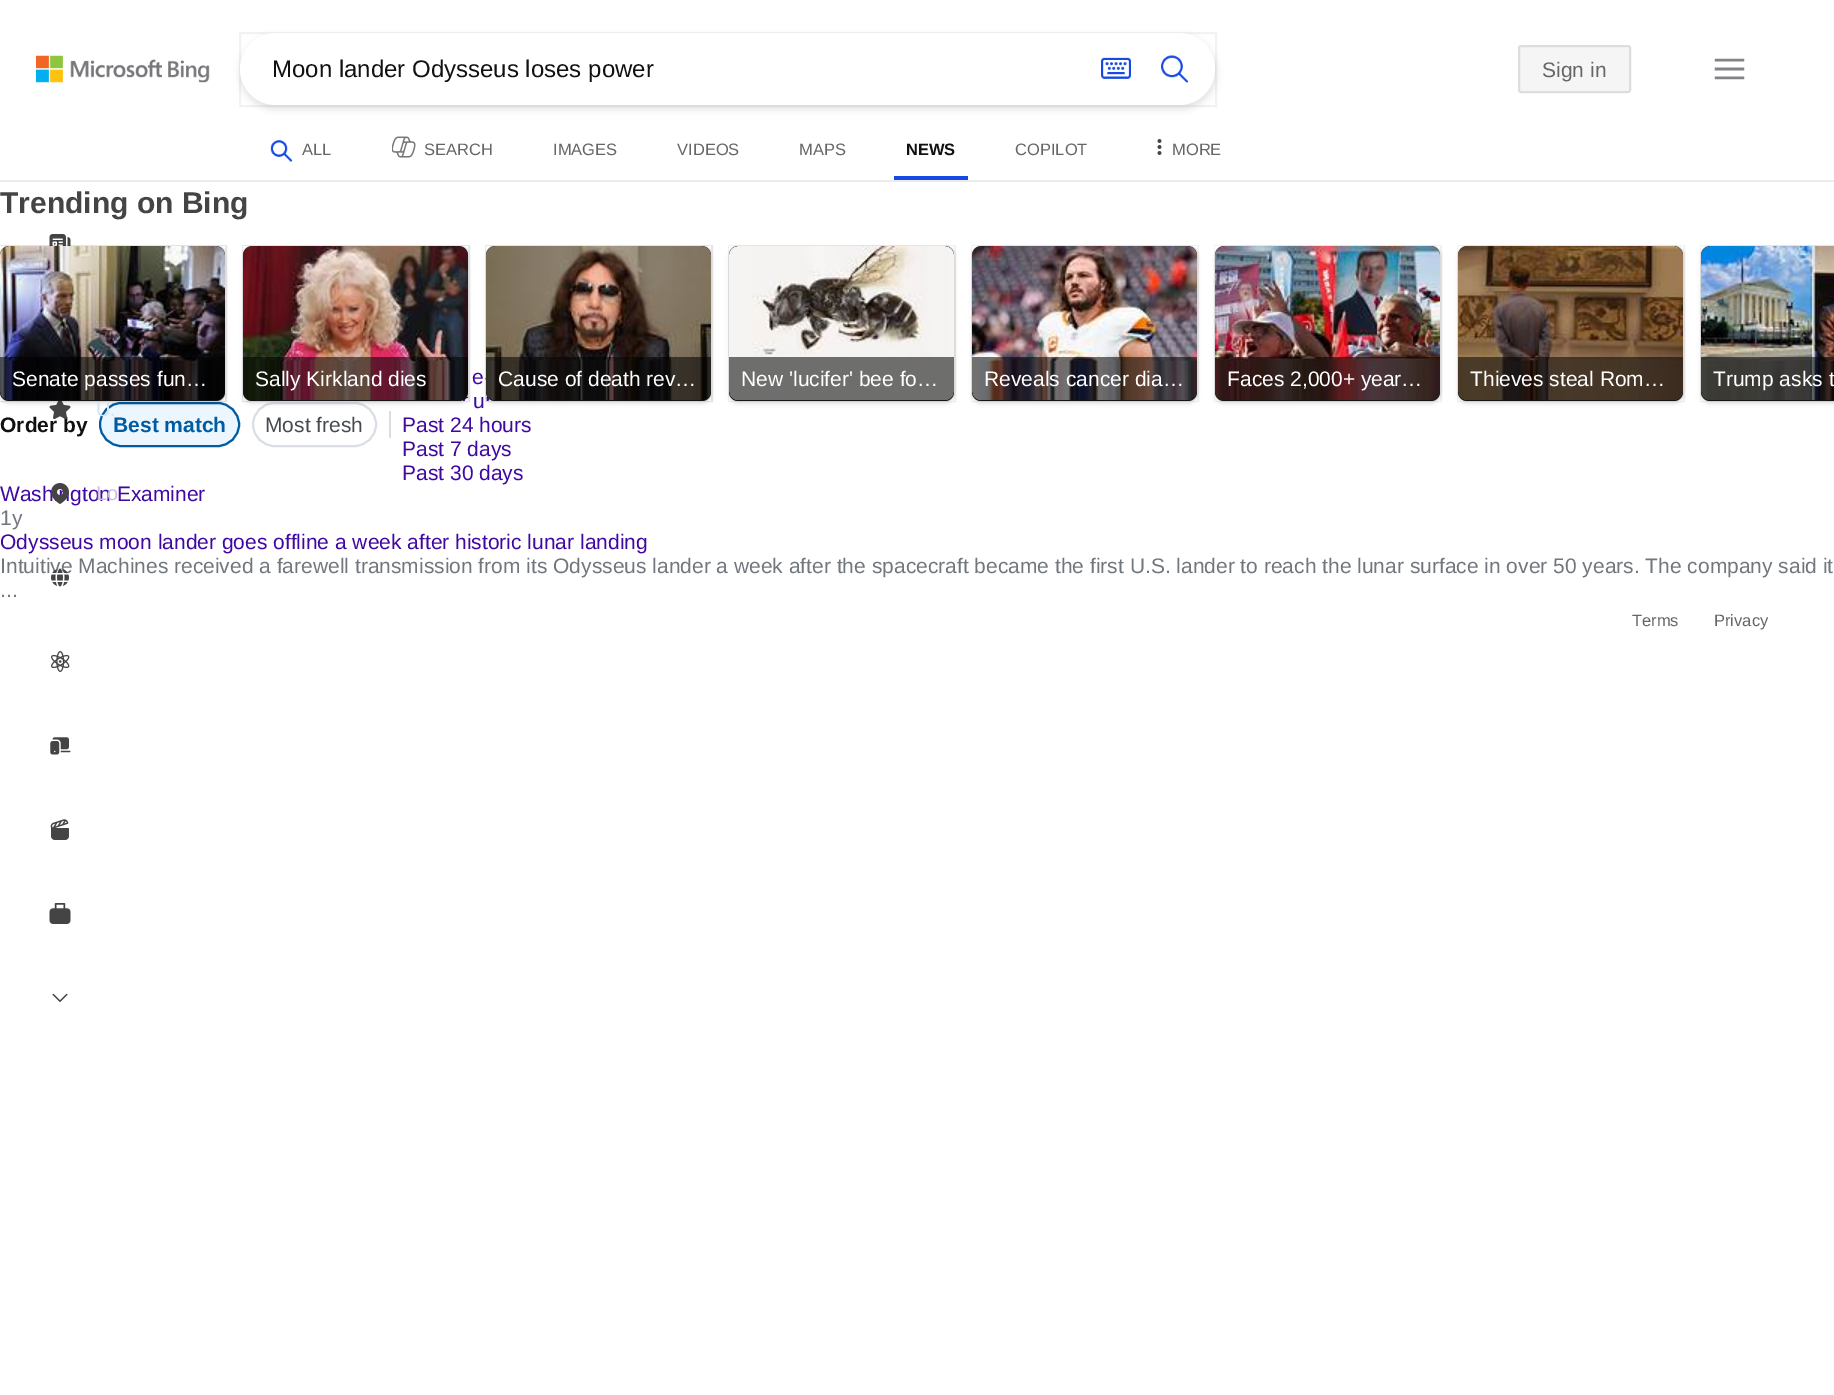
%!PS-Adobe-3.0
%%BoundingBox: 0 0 1834 1395
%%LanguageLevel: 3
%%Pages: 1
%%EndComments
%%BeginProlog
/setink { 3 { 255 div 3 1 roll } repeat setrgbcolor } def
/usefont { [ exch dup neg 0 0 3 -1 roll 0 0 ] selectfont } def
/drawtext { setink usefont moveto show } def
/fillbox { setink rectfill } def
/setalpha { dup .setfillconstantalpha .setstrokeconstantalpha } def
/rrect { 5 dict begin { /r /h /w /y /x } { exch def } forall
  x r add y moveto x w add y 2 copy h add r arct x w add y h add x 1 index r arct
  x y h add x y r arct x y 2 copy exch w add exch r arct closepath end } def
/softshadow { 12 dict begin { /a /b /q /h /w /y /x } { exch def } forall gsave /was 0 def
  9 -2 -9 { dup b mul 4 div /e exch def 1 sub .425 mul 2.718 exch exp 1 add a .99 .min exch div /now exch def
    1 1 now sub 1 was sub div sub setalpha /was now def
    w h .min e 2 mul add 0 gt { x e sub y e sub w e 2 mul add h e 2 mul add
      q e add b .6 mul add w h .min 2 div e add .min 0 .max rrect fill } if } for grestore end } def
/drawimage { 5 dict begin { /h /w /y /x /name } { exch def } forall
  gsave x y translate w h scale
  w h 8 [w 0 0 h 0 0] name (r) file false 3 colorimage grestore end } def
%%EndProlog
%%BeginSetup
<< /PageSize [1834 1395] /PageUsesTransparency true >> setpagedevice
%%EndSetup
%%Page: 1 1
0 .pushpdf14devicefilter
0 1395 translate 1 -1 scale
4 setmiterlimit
0 0 1834 1395 255 255 255 fillbox
0 180 1834 2 236 236 236 fillbox
(assets/img1.rgb) 36 55 174 28 drawimage
0 0 0 setink
239 35 978 75 37.5 3 0.09 softshadow
0.05 setalpha
2 setlinewidth
240 33 976 73 rectstroke
1 setalpha
255 255 255 setink
240 33 975 72 36 rrect fill
(Moon lander Odysseus loses power) 272 77 /LiberationSans-Regular 24 17 17 17 drawtext
(assets/img2.rgb) 1101 57 30 22 drawimage
(assets/img3.rgb) 1161 55 27 28 drawimage
245 245 245 setink
1519 46 111 46 2 rrect gsave fill grestore
221 221 221 setink
stroke
(Sign in) 1542 77 /LiberationSans-Regular 21 102 102 102 drawtext
(assets/img4.rgb) 1714 58 31 22 drawimage
(assets/img5.rgb) 270 140 23 22 drawimage
(ALL) 302 155 /LiberationSans-Regular 16.5 102 102 102 drawtext
(assets/img6.rgb) 392 136 24 22 drawimage
(SEARCH) 424 155 /LiberationSans-Regular 16.5 102 102 102 drawtext
(IMAGES) 553 155 /LiberationSans-Regular 16.5 102 102 102 drawtext
(VIDEOS) 677 155 /LiberationSans-Regular 16.5 102 102 102 drawtext
(MAPS) 799 155 /LiberationSans-Regular 16.5 102 102 102 drawtext
(NEWS) 906 155 /LiberationSans-Bold 16.5 17 17 17 drawtext
894 176 74 4 23 74 228 fillbox
(COPILOT) 1015 155 /LiberationSans-Regular 16.5 102 102 102 drawtext
(assets/img7.rgb) 1157 139 5 16 drawimage
(MORE) 1172 155 /LiberationSans-Regular 16.5 102 102 102 drawtext
(Trending on Bing) 0 213 /LiberationSans-Bold 30 68 68 68 drawtext
(assets/img25.rgb) 49 234 22 12 drawimage
(Order by) 0 432 /LiberationSans-Bold 21 17 17 17 drawtext
(assets/img26.rgb) 49 401 22 19 drawimage
0.05 setalpha
0 0 0 setink
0 246 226 155 rectstroke
1 setalpha
235 246 255 setink
100 403 139 43 21.5 rrect gsave fill grestore
0 91 161 setink
stroke
0 0 0 setink
0 249 225 155 9 2 0.1 softshadow
0.05 setalpha
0 246 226 155 rectstroke
1 setalpha
41 40 39 setink
0 246 225 155 9 rrect fill
(assets/img8.rgb) 0 246 225 117 drawimage
(assets/img9.rgb) 0 363 225 38 drawimage
0.55 setalpha
0 0 0 setink
0 357 moveto 225 357 lineto 225 392 lineto 225 397 221 401 216 401 curveto 9 401 lineto 4 401 0 397 0 392 curveto closepath fill
1 setalpha
(Senate passes fun…) 12 386 /LiberationSans-Regular 21 255 255 255 drawtext
0.05 setalpha
0 0 0 setink
243 246 226 155 rectstroke
1 setalpha
218 222 229 setink
253 403 123 43 21.5 rrect stroke
0 0 0 setink
243 249 225 155 9 2 0.1 softshadow
0.05 setalpha
243 246 226 155 rectstroke
1 setalpha
41 40 39 setink
243 246 225 155 9 rrect fill
(assets/img10.rgb) 243 246 225 117 drawimage
(assets/img11.rgb) 243 363 225 38 drawimage
0.55 setalpha
0 0 0 setink
243 357 moveto 468 357 lineto 468 392 lineto 468 397 464 401 459 401 curveto 252 401 lineto 247 401 243 397 243 392 curveto closepath fill
1 setalpha
(Sally Kirkland dies) 255 386 /LiberationSans-Regular 21 255 255 255 drawtext
(assets/img24.rgb) 484 378 2 2 drawimage
0.05 setalpha
0 0 0 setink
486 246 226 155 rectstroke
1 setalpha
486 249 225 155 9 2 0.1 softshadow
0.05 setalpha
486 246 226 155 rectstroke
1 setalpha
41 40 39 setink
486 246 225 155 9 rrect fill
(assets/img12.rgb) 486 246 225 117 drawimage
(assets/img13.rgb) 486 363 225 38 drawimage
0.55 setalpha
0 0 0 setink
486 357 moveto 711 357 lineto 711 392 lineto 711 397 707 401 702 401 curveto 495 401 lineto 490 401 486 397 486 392 curveto closepath fill
1 setalpha
(Cause of death rev…) 498 386 /LiberationSans-Regular 21 255 255 255 drawtext
242 242 242 setink
729 246 226 155 10 rrect stroke
0 0 0 setink
729 249 225 155 9 2 0.1 softshadow
0.05 setalpha
729 246 226 155 rectstroke
1 setalpha
41 40 39 setink
729 246 225 155 9 rrect fill
(assets/img14.rgb) 729 246 225 113 drawimage
(assets/img15.rgb) 729 359 225 42 drawimage
0.55 setalpha
0 0 0 setink
729 357 moveto 954 357 lineto 954 392 lineto 954 397 950 401 945 401 curveto 738 401 lineto 733 401 729 397 729 392 curveto closepath fill
1 setalpha
(New 'lucifer' bee fo…) 741 386 /LiberationSans-Regular 21 255 255 255 drawtext
242 242 242 setink
972 246 226 155 10 rrect stroke
0 0 0 setink
972 249 225 155 9 2 0.1 softshadow
0.05 setalpha
972 246 226 155 rectstroke
1 setalpha
41 40 39 setink
972 246 225 155 9 rrect fill
(assets/img16.rgb) 972 246 225 117 drawimage
(assets/img17.rgb) 972 363 225 38 drawimage
0.55 setalpha
0 0 0 setink
972 357 moveto 1197 357 lineto 1197 392 lineto 1197 397 1193 401 1188 401 curveto 981 401 lineto 976 401 972 397 972 392 curveto closepath fill
1 setalpha
(Reveals cancer dia…) 984 386 /LiberationSans-Regular 21 255 255 255 drawtext
242 242 242 setink
1215 246 226 155 10 rrect stroke
0 0 0 setink
1215 249 225 155 9 2 0.1 softshadow
0.05 setalpha
1215 246 226 155 rectstroke
1 setalpha
41 40 39 setink
1215 246 225 155 9 rrect fill
(assets/img18.rgb) 1215 246 225 117 drawimage
(assets/img19.rgb) 1215 363 225 38 drawimage
0.55 setalpha
0 0 0 setink
1215 357 moveto 1440 357 lineto 1440 392 lineto 1440 397 1436 401 1431 401 curveto 1224 401 lineto 1219 401 1215 397 1215 392 curveto closepath fill
1 setalpha
(Faces 2,000+ year…) 1227 386 /LiberationSans-Regular 21 255 255 255 drawtext
242 242 242 setink
1458 246 226 155 10 rrect stroke
0 0 0 setink
1458 249 225 155 9 2 0.1 softshadow
0.05 setalpha
1458 246 226 155 rectstroke
1 setalpha
41 40 39 setink
1458 246 225 155 9 rrect fill
(assets/img20.rgb) 1458 246 225 117 drawimage
(assets/img21.rgb) 1458 363 225 38 drawimage
0.55 setalpha
0 0 0 setink
1458 357 moveto 1683 357 lineto 1683 392 lineto 1683 397 1679 401 1674 401 curveto 1467 401 lineto 1462 401 1458 397 1458 392 curveto closepath fill
1 setalpha
(Thieves steal Rom…) 1470 386 /LiberationSans-Regular 21 255 255 255 drawtext
242 242 242 setink
1701 246 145 155 10 rrect stroke
0 0 0 setink
1701 249 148 155 9 2 0.1 softshadow
0.05 setalpha
1701 246 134 155 rectstroke
1 setalpha
41 40 39 setink
1710 246 moveto 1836 246 lineto 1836 401 lineto 1710 401 lineto 1705 401 1701 397 1701 392 curveto 1701 255 lineto 1701 250 1705 246 1710 246 curveto closepath fill
(assets/img22.rgb) 1701 246 133 117 drawimage
(assets/img23.rgb) 1701 363 133 38 drawimage
0.55 setalpha
0 0 0 setink
1701 357 moveto 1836 357 lineto 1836 401 lineto 1710 401 lineto 1705 401 1701 397 1701 392 curveto closepath fill
1 setalpha
(Trump asks t) 1713 386 /LiberationSans-Regular 21 255 255 255 drawtext
(Best match) 113 432 /LiberationSans-Bold 21 0 91 161 drawtext
(Most fresh) 265 432 /LiberationSans-Regular 21 71 75 80 drawtext
389 411 2 27 221 221 221 fillbox
(e) 472 384 /LiberationSans-Regular 21 64 7 162 drawtext
(u) 473 408 /LiberationSans-Regular 21 64 7 162 drawtext
(Past 24 hours) 402 432 /LiberationSans-Regular 21 64 7 162 drawtext
(Past 7 days) 402 456 /LiberationSans-Regular 21 64 7 162 drawtext
(Past 30 days) 402 480 /LiberationSans-Regular 21 64 7 162 drawtext
(Wash) 0 501 /LiberationSans-Regular 21 64 7 162 drawtext
(gton Examiner) 70 501 /LiberationSans-Regular 21 64 7 162 drawtext
(1y) 0 525 /LiberationSans-Regular 21 113 119 125 drawtext
(Odysseus moon lander goes offline a week after historic lunar landing) 0 549 /LiberationSans-Regular 21 64 7 162 drawtext
(Intuitive Machines received a farewell transmission from its Odysseus lander a week after the spacecraft became the first U.S. lander to reach the lunar surface in over 50 years. The company said it) 0 573 /LiberationSans-Regular 21 113 119 125 drawtext
(...) 0 597 /LiberationSans-Regular 21 113 119 125 drawtext
(U.) 96 416 /LiberationSans-Regular 20 211 228 242 drawtext
(assets/img27.rgb) 51 483 18 21 drawimage
(Lo) 96 500 /LiberationSans-Regular 20 203 188 230 drawtext
(assets/img28.rgb) 51 568 18 19 drawimage
(assets/img29.rgb) 51 651 19 21 drawimage
(assets/img30.rgb) 50 737 21 18 drawimage
(assets/img31.rgb) 50 819 19 21 drawimage
(assets/img32.rgb) 49 903 22 21 drawimage
(assets/img33.rgb) 52 993 16 9 drawimage
(Terms) 1632 626 /LiberationSans-Regular 16.5 102 102 102 drawtext
(Privacy) 1714 626 /LiberationSans-Regular 16.5 102 102 102 drawtext
.poppdf14devicefilter showpage
%%EOF
